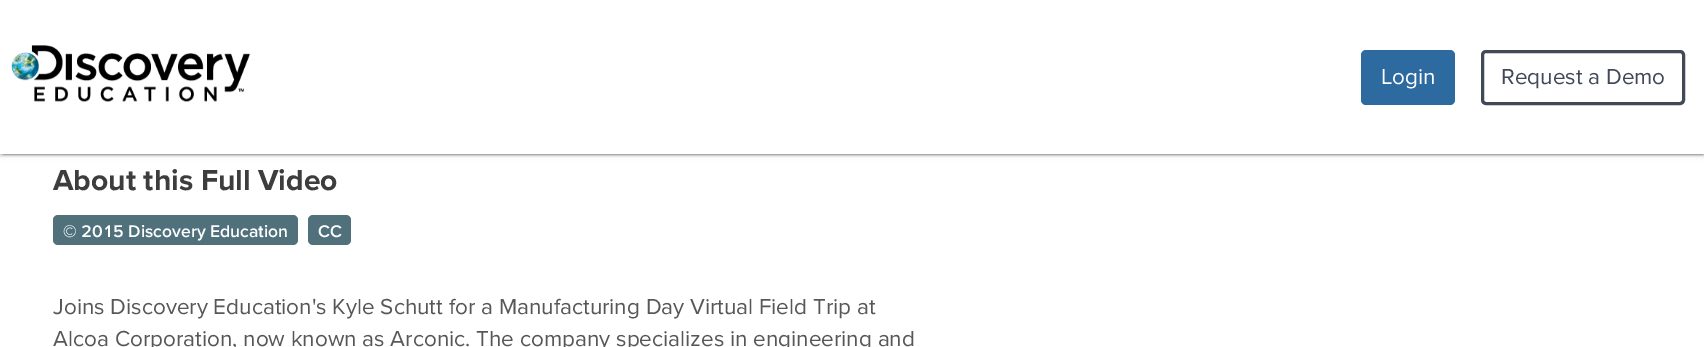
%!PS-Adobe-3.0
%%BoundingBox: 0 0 1704 347
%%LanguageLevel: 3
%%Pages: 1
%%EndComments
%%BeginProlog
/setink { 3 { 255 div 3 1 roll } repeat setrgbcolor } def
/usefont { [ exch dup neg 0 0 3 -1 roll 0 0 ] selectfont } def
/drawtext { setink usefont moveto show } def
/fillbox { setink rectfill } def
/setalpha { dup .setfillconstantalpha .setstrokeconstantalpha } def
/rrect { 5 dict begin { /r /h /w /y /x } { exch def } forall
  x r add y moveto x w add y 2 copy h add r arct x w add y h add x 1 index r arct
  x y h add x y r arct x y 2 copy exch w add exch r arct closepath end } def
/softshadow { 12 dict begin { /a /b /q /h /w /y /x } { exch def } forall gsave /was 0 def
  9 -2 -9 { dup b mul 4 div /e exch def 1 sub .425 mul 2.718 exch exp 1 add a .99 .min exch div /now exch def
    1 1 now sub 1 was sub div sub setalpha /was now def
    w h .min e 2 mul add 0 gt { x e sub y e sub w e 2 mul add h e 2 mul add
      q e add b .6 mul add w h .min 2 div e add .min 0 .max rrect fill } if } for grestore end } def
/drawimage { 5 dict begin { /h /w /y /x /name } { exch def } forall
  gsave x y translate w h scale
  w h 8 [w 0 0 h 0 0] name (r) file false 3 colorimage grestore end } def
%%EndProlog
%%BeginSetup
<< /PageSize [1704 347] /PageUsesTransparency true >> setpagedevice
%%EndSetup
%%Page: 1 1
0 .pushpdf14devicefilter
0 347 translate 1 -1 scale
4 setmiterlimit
0 0 1704 347 255 255 255 fillbox
0 0 0 setink
3 6 1700 149 0 0.5 0.2 softshadow
0 1 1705 154 0 3 0.12 softshadow
0 3 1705 153 0 1 0.14 softshadow
0 0 1704 154 255 255 255 fillbox
(assets/img1.rgb) 11 45 239 57 drawimage
45 106 159 setink
1361 50 94 55 5 rrect fill
(Login) 1381 84 /ProximaNova-Regular 22.5 255 255 255 drawtext
65 72 88 setink
3 setlinewidth
1482.5 51.5 201 52 3.5 rrect stroke
(Request a Demo) 1501 84 /ProximaNova-Regular 22.5 65 72 88 drawtext
(About this Full Video) 53 190 /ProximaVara-Bold 30 61 61 61 drawtext
80 113 124 setink
53 215 245 30 5 rrect fill
(© 2015 Discovery Education) 63 237 /ProximaVara-SemiBold 17.5 255 255 255 drawtext
80 113 124 setink
308 215 43 30 5 rrect fill
(CC) 318 237 /ProximaVara-SemiBold 17.5 255 255 255 drawtext
(Joins Discovery Education's Kyle Schutt for a Manufacturing Day Virtual Field Trip at) 53 314 /ProximaVara-Regular 22.5 87 87 87 drawtext
(Alcoa Corporation, now known as Arconic. The company specializes in engineering and) 53 346 /ProximaVara-Regular 22.5 87 87 87 drawtext
.poppdf14devicefilter showpage
%%EOF
